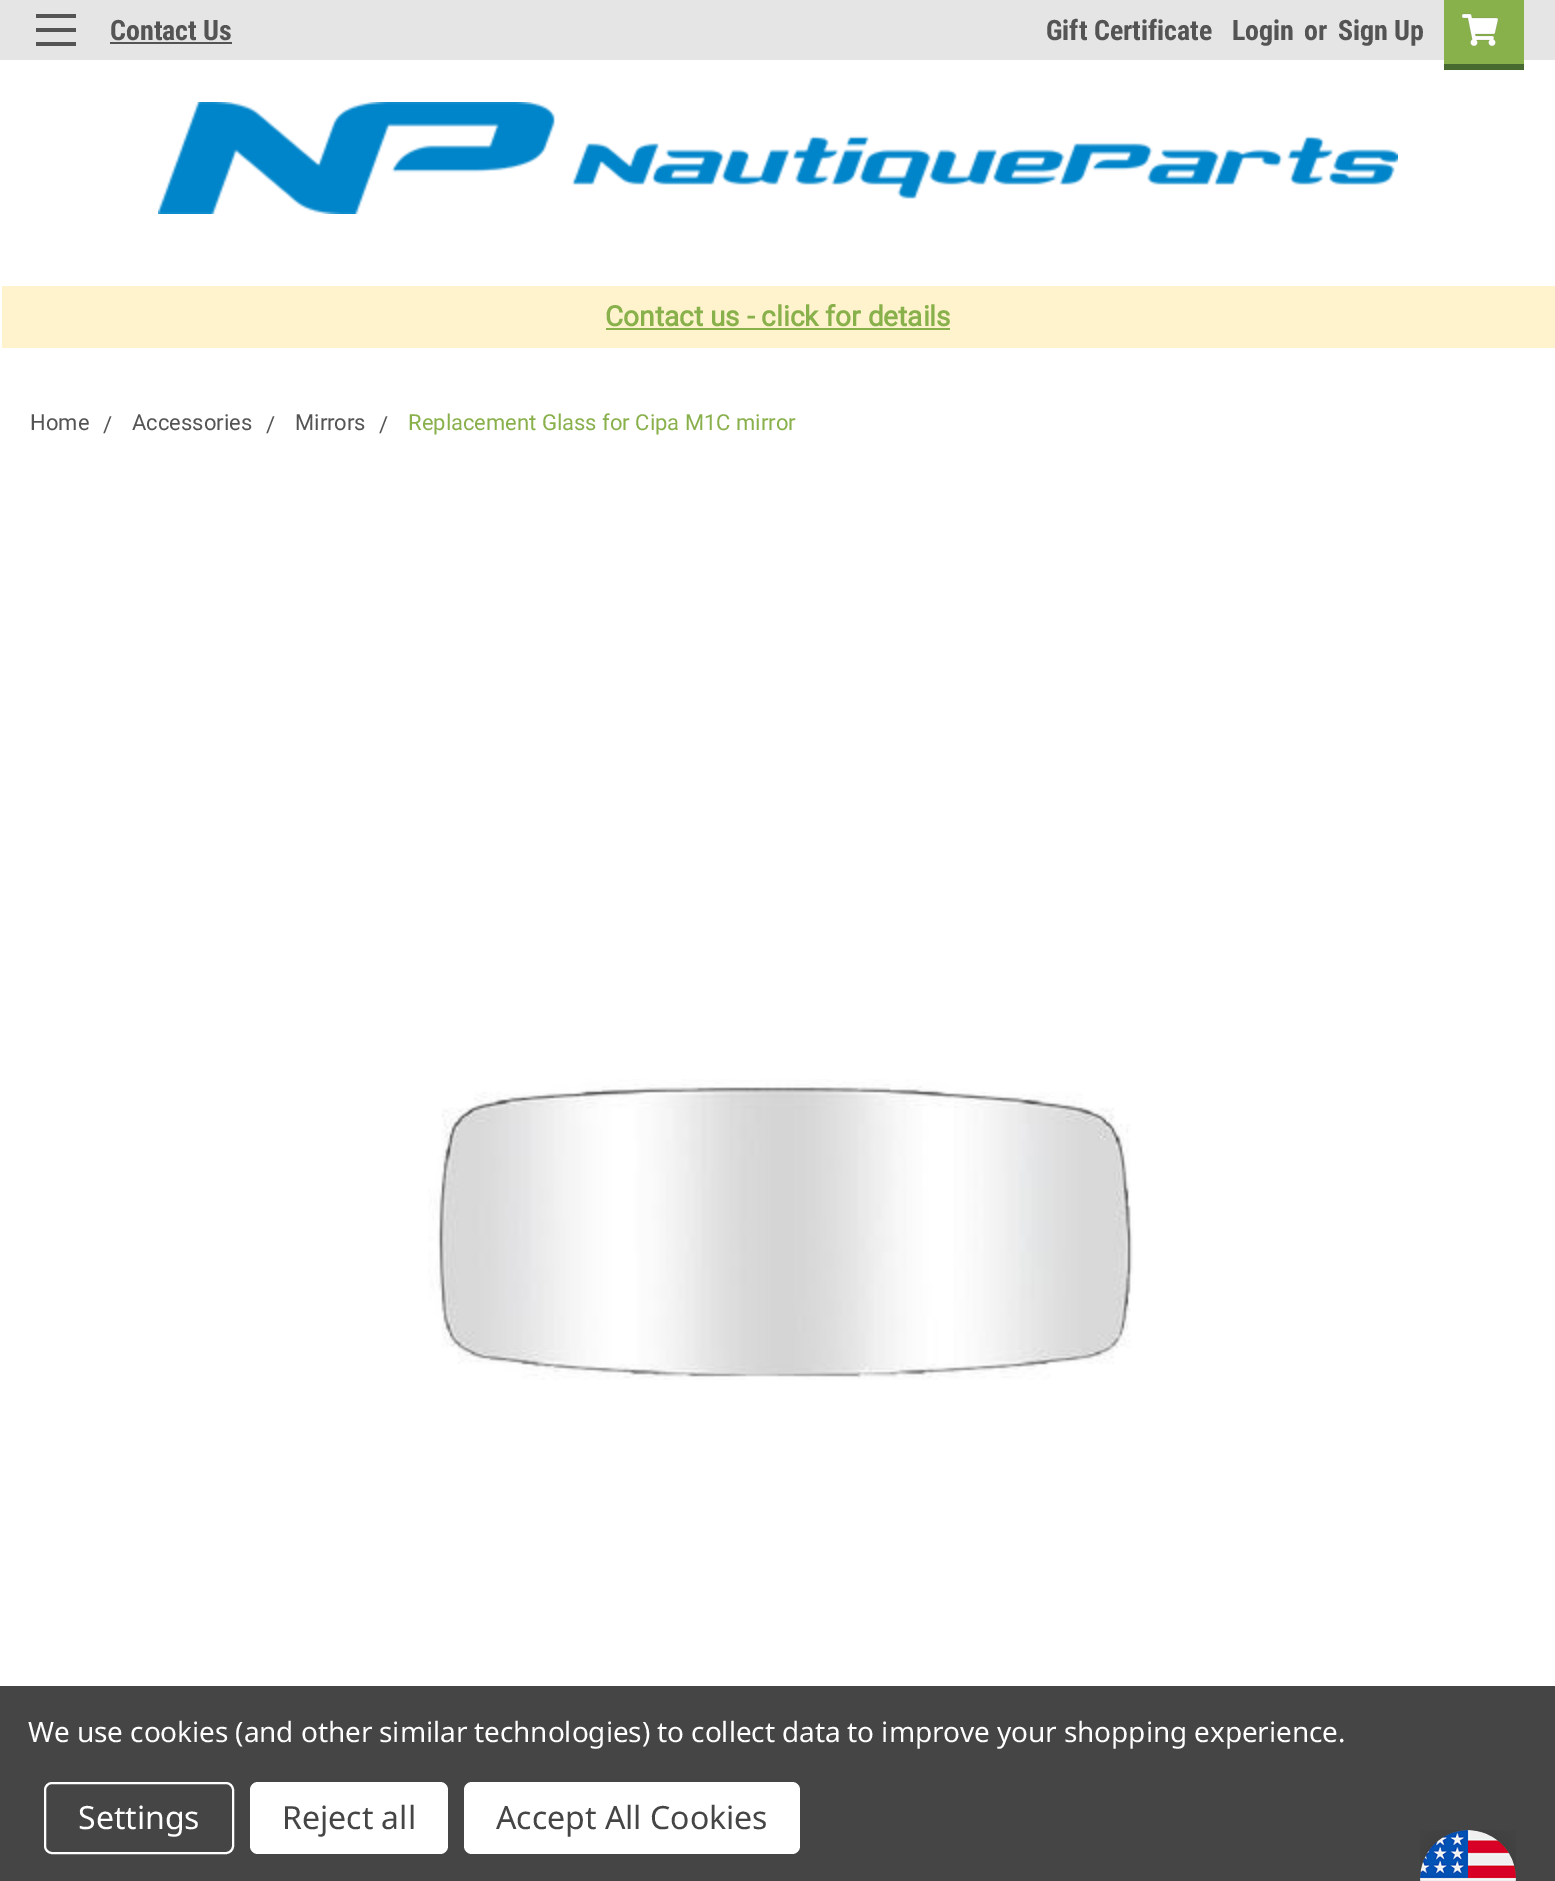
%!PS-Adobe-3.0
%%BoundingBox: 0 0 1555 1881
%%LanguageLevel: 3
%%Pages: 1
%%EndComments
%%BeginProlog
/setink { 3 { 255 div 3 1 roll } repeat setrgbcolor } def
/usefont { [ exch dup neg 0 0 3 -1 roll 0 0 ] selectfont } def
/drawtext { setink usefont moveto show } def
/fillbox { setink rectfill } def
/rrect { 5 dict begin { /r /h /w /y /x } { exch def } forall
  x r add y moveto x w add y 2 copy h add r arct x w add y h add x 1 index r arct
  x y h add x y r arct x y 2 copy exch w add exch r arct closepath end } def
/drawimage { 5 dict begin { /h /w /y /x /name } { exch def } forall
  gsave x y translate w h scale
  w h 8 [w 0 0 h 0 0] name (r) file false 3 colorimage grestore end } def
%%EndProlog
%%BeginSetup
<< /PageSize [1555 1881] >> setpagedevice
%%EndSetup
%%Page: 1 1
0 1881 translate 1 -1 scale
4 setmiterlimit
0 0 1555 1881 255 255 255 fillbox
0 0 1555 60 229 229 229 fillbox
36 28 40 4 84 84 84 fillbox
36 14 40 4 84 84 84 fillbox
36 42 40 4 84 84 84 fillbox
(Contact Us) 110 40 /RobotoCondensed-Bold 28 84 84 84 drawtext
110 42 122 2 84 84 84 fillbox
(Gift Certificate) 1046 40 /RobotoCondensed-Bold 28 84 84 84 drawtext
(Login) 1232 40 /RobotoCondensed-Bold 28 84 84 84 drawtext
(or) 1304 40 /RobotoCondensed-Bold 28 84 84 84 drawtext
(Sign Up) 1338 40 /RobotoCondensed-Bold 28 84 84 84 drawtext
1444 0 80 64 136 176 75 fillbox
1444 64 80 6 71 106 48 fillbox
(assets/img1.rgb) 1462 13 36 33 drawimage
(assets/img2.rgb) 158 102 1240 112 drawimage
2 286 1553 62 255 243 205 fillbox
(Contact us - click for details) 605 326 /Roboto-Bold 28 136 176 75 drawtext
606 328 344 2 136 176 75 fillbox
(Home) 30 430 /Roboto-Regular 22 84 84 84 drawtext
(/) 103 432 /Roboto-Regular 22 84 84 84 drawtext
(Accessories) 132 430 /Roboto-Regular 22 84 84 84 drawtext
(/) 266 432 /Roboto-Regular 22 84 84 84 drawtext
(Mirrors) 295 430 /Roboto-Regular 22 84 84 84 drawtext
(/) 379 432 /Roboto-Regular 22 84 84 84 drawtext
(Replacement Glass for Cipa M1C mirror) 408 430 /Roboto-Regular 22 136 176 75 drawtext
(assets/img3.rgb) 428 1079 706 301 drawimage
0 1686 1555 195 69 69 69 fillbox
/NotoSans-Regular 28 usefont
255 255 255 setink
28 1742 moveto -0.1 0 (We use cookies \(and other similar technologies\) to collect data to improve your shopping experience.) ashow
2 setlinewidth
45 1783 188 70 7 rrect stroke
(Settings) 78 1829 /NotoSans-Regular 32 255 255 255 drawtext
250 1782 198 72 8 rrect fill
(Reject all) 282 1829 /NotoSans-Regular 32 69 69 69 drawtext
255 255 255 setink
464 1782 336 72 8 rrect fill
(Accept All Cookies) 496 1829 /NotoSans-Regular 32 69 69 69 drawtext
(assets/img4.rgb) 1420 1830 96 51 drawimage
showpage
%%EOF
